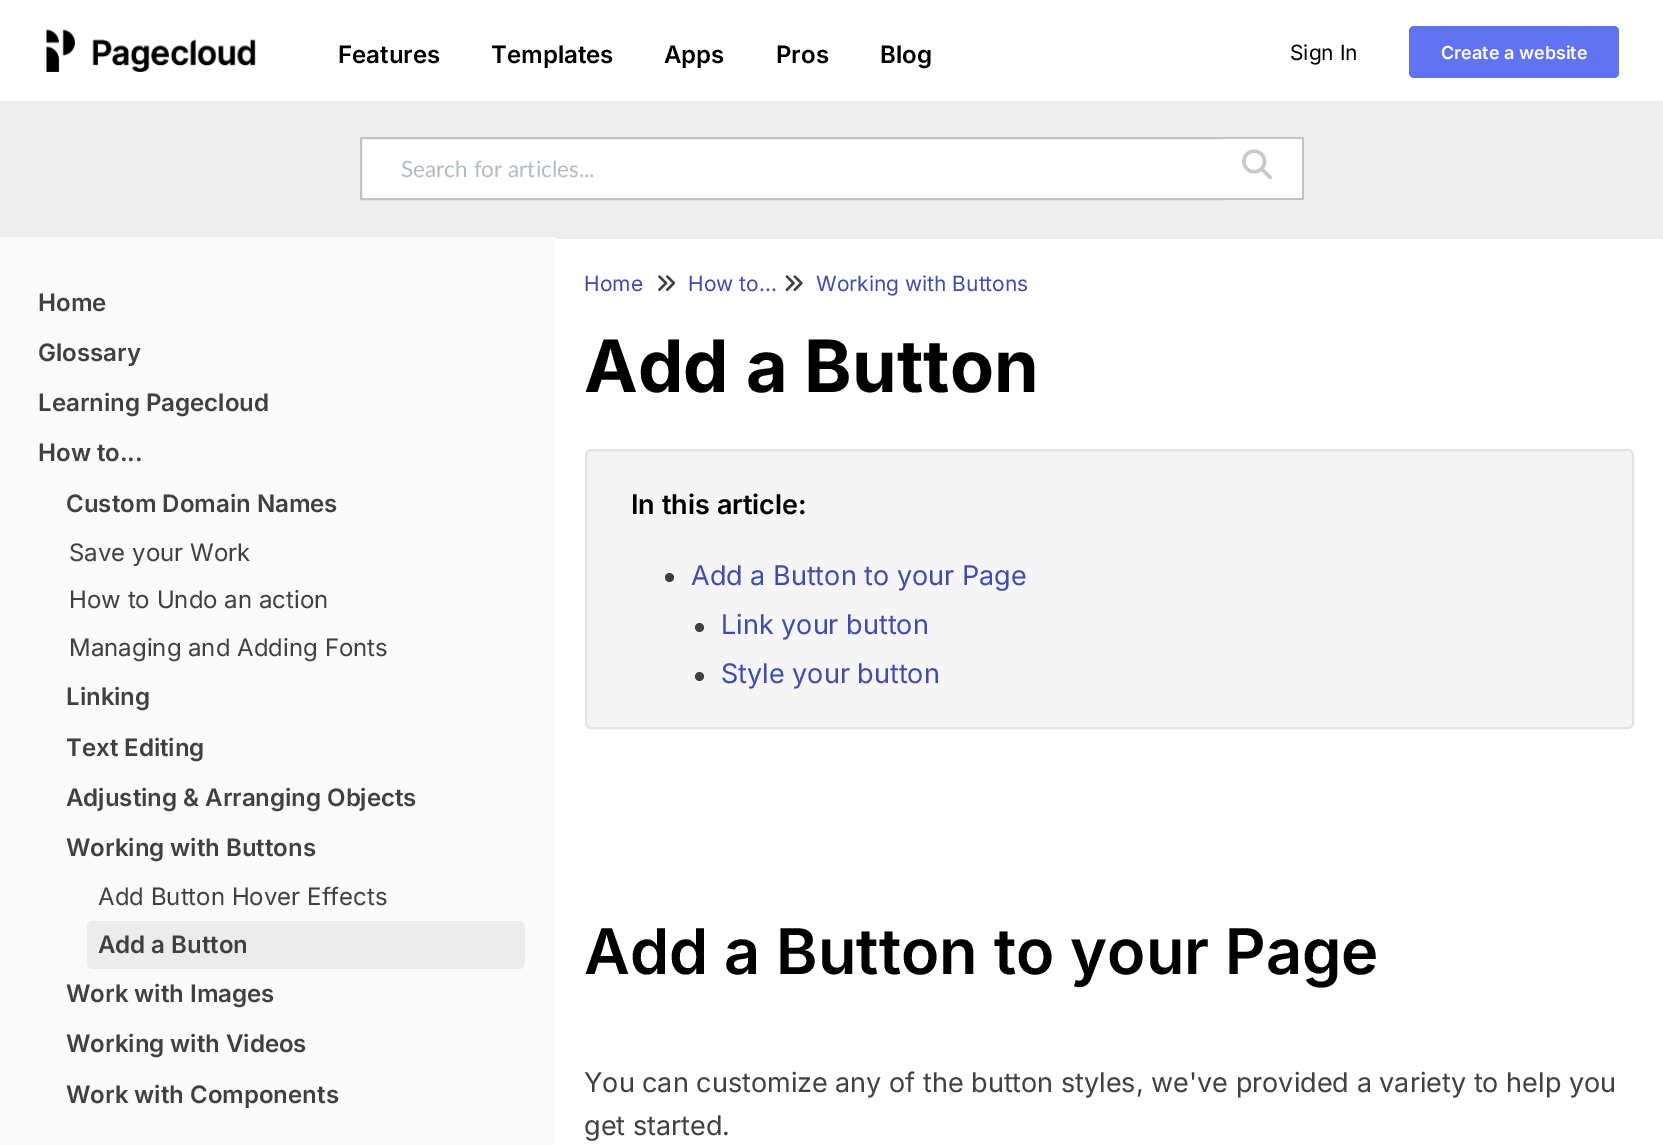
%!PS-Adobe-3.0
%%BoundingBox: 0 0 1663 1145
%%LanguageLevel: 3
%%Pages: 1
%%EndComments
%%BeginProlog
/setink { 3 { 255 div 3 1 roll } repeat setrgbcolor } def
/usefont { [ exch dup neg 0 0 3 -1 roll 0 0 ] selectfont } def
/drawtext { setink usefont moveto show } def
/fillbox { setink rectfill } def
/disc { newpath 0 360 arc closepath } def
/rrect { 5 dict begin { /r /h /w /y /x } { exch def } forall
  x r add y moveto x w add y 2 copy h add r arct x w add y h add x 1 index r arct
  x y h add x y r arct x y 2 copy exch w add exch r arct closepath end } def
/drawimage { 5 dict begin { /h /w /y /x /name } { exch def } forall
  gsave x y translate w h scale
  w h 8 [w 0 0 h 0 0] name (r) file false 3 colorimage grestore end } def
%%EndProlog
%%BeginSetup
<< /PageSize [1663 1145] >> setpagedevice
%%EndSetup
%%Page: 1 1
0 1145 translate 1 -1 scale
4 setmiterlimit
0 0 1663 1145 238 238 238 fillbox
0 0 1663 101 255 255 255 fillbox
(assets/img1.rgb) 46 29 210 43 drawimage
(Features) 338 63 /Inter-SemiBold 24 0 0 0 drawtext
(Templates) 491 63 /Inter-SemiBold 24 0 0 0 drawtext
(Apps) 664 63 /Inter-SemiBold 24 0 0 0 drawtext
(Pros) 776 63 /Inter-SemiBold 24 0 0 0 drawtext
(Blog) 880 63 /Inter-SemiBold 24 0 0 0 drawtext
(Sign In) 1290 60 /Inter-Regular 21 0 0 0 drawtext
97 115 241 setink
1409 26 210 52 5 rrect fill
(Create a website) 1441 59 /Inter-SemiBold 18 255 255 255 drawtext
362 139 858 59 255 255 255 fillbox
189 195 199 setink
2 setlinewidth
361 138 862 61 rectstroke
(Search for articles...) 401 177 /Lato-Regular 22.5 178 188 197 drawtext
1220 139 82 59 255 255 255 fillbox
1220 137 84 2 189 195 199 fillbox
1302 137 2 63 189 195 199 fillbox
1220 198 84 2 189 195 199 fillbox
(assets/img2.rgb) 1242 149 30 31 drawimage
0 237 555 908 250 250 250 fillbox
(Home) 38 311 /Inter-SemiBold 24 64 64 64 drawtext
(Glossary) 38 361 /Inter-SemiBold 24 64 64 64 drawtext
(Learning Pagecloud) 38 411 /Inter-SemiBold 24 64 64 64 drawtext
(How to...) 38 461 /Inter-SemiBold 24 64 64 64 drawtext
(Custom Domain Names) 66 512 /Inter-SemiBold 24 64 64 64 drawtext
(Save your Work) 69 561 /Inter-Regular 24 64 64 64 drawtext
(How to Undo an action) 69 608 /Inter-Regular 24 64 64 64 drawtext
(Managing and Adding Fonts) 69 656 /Inter-Regular 24 64 64 64 drawtext
(Linking) 66 705 /Inter-SemiBold 24 64 64 64 drawtext
(Text Editing) 66 756 /Inter-SemiBold 24 64 64 64 drawtext
(Adjusting & Arranging Objects) 66 806 /Inter-SemiBold 24 64 64 64 drawtext
(Working with Buttons) 66 856 /Inter-SemiBold 24 64 64 64 drawtext
(Add Button Hover Effects) 98 905 /Inter-Regular 24 64 64 64 drawtext
237 236 237 setink
87 921 438 48 6 rrect fill
(Add a Button) 98 953 /Inter-SemiBold 24 64 64 64 drawtext
(Work with Images) 66 1002 /Inter-SemiBold 24 64 64 64 drawtext
(Working with Videos) 66 1052 /Inter-SemiBold 24 64 64 64 drawtext
(Work with Components) 66 1103 /Inter-SemiBold 24 64 64 64 drawtext
555 239 1108 906 255 255 255 fillbox
(Home) 584 291 /Inter-Regular 21 63 76 174 drawtext
(assets/img3.rgb) 658 275 18 16 drawimage
(How to...) 688 291 /Inter-Regular 21 63 76 174 drawtext
(assets/img4.rgb) 785 275 18 16 drawimage
(Working with Buttons) 816 291 /Inter-Regular 21 63 76 174 drawtext
(Add a Button) 584 392 /Inter-Bold 72 0 0 0 drawtext
245 245 245 setink
586 450 1047 278 5 rrect gsave fill grestore
227 227 227 setink
stroke
(In this article:) 631 514 /Inter-SemiBold 27 0 0 0 drawtext
64 64 64 setink
669.5 577.5 4.5 disc fill
(Add a Button to your Page) 691 585 /Inter-Regular 27 63 76 174 drawtext
64 64 64 setink
699.5 627.5 4.5 disc fill
(Link your button) 721 634 /Inter-Regular 27 63 76 174 drawtext
64 64 64 setink
699.5 676.5 4.5 disc fill
(Style your button) 721 683 /Inter-Regular 27 63 76 174 drawtext
(Add a Button to your Page) 584 974 /Inter-SemiBold 63 0 0 0 drawtext
(You can customize any of the button styles, we've provided a variety to help you) 584 1092 /Inter-Regular 27 64 64 64 drawtext
(get started.) 584 1135 /Inter-Regular 27 64 64 64 drawtext
showpage
%%EOF
